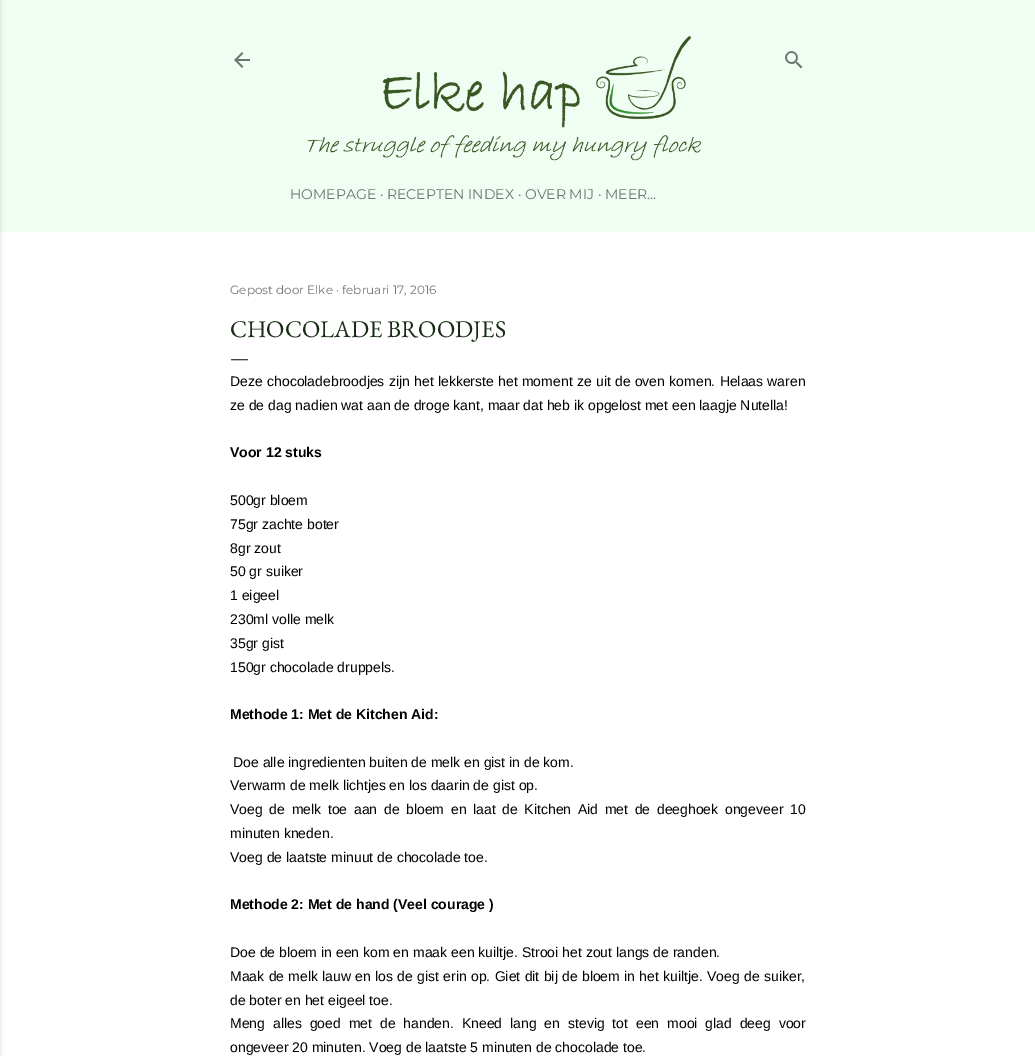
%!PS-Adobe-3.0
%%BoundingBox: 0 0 1035 1056
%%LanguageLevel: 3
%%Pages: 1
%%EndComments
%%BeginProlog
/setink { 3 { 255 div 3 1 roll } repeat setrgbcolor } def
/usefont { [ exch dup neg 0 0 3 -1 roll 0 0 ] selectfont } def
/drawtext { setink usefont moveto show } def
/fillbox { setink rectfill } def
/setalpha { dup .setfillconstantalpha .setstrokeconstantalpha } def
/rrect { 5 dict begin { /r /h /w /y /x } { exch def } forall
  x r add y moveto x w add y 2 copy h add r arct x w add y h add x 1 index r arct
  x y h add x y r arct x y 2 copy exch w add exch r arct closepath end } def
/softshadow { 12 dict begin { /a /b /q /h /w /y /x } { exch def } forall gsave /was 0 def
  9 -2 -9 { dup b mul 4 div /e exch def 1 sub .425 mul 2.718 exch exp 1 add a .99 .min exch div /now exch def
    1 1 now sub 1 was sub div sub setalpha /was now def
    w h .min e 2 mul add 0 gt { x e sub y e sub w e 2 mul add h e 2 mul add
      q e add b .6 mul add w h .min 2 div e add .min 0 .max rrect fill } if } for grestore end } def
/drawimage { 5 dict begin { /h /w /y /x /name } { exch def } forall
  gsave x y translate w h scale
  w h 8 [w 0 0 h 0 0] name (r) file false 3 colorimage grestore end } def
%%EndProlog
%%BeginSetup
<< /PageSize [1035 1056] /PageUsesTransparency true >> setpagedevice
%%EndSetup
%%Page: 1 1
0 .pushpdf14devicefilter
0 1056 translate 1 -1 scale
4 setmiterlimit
0 0 1035 1056 255 255 255 fillbox
0 0 1035 232 240 253 243 fillbox
0 0 0 setink
-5 0 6 1056 0 1.5 0.1 softshadow
(assets/img1.rgb) 234 52 16 16 drawimage
(assets/img2.rgb) 785 51 18 18 drawimage
(assets/img3.rgb) 307 36 394 125 drawimage
(HOMEPAGE · RECEPTEN INDEX · OVER MIJ · MEER…) 290 199 /Montserrat-Regular 14 110 116 112 drawtext
(Gepost door Elke · februari 17, 2016) 230 294 /Montserrat-Regular 12 117 117 117 drawtext
(CHOCOLADE BROODJES) 230 337 /EBGaramond-Regular 24 23 44 20 drawtext
(—) 230 364 /EBGaramond-Regular 20 0 0 0 drawtext
/LiberationSans-Regular 14 usefont
230 386 moveto 0.4 0 32 (Deze chocoladebroodjes zijn het lekkerste het moment ze uit de oven komen. Helaas waren) widthshow
(ze de dag nadien wat aan de droge kant, maar dat heb ik opgelost met een laagje Nutella!) 230 410 /LiberationSans-Regular 14 0 0 0 drawtext
(Voor 12 stuks) 230 457 /LiberationSans-Bold 14 0 0 0 drawtext
(500gr bloem) 230 505 /LiberationSans-Regular 14 0 0 0 drawtext
(75gr zachte boter) 230 529 /LiberationSans-Regular 14 0 0 0 drawtext
(8gr zout) 230 553 /LiberationSans-Regular 14 0 0 0 drawtext
(50 gr suiker) 230 576 /LiberationSans-Regular 14 0 0 0 drawtext
(1 eigeel) 230 600 /LiberationSans-Regular 14 0 0 0 drawtext
(230ml volle melk) 230 624 /LiberationSans-Regular 14 0 0 0 drawtext
(35gr gist) 230 648 /LiberationSans-Regular 14 0 0 0 drawtext
(150gr chocolade druppels.) 230 672 /LiberationSans-Regular 14 0 0 0 drawtext
(Methode 1: Met de Kitchen Aid:) 230 719 /LiberationSans-Bold 14 0 0 0 drawtext
(Doe alle ingredienten buiten de melk en gist in de kom.) 233 767 /LiberationSans-Regular 14 0 0 0 drawtext
(Verwarm de melk lichtjes en los daarin de gist op.) 230 790 /LiberationSans-Regular 14 0 0 0 drawtext
230 814 moveto 2.75 0 32 (Voeg de melk toe aan de bloem en laat de Kitchen Aid met de deeghoek ongeveer 10) widthshow
(minuten kneden.) 230 838 /LiberationSans-Regular 14 0 0 0 drawtext
(Voeg de laatste minuut de chocolade toe.) 230 862 /LiberationSans-Regular 14 0 0 0 drawtext
(Methode 2: Met de hand \(Veel courage \)) 230 909 /LiberationSans-Bold 14 0 0 0 drawtext
(Doe de bloem in een kom en maak een kuiltje. Strooi het zout langs de randen.) 230 957 /LiberationSans-Regular 14 0 0 0 drawtext
230 981 moveto 0.4 0 32 (Maak de melk lauw en los de gist erin op. Giet dit bij de bloem in het kuiltje. Voeg de suiker,) widthshow
(de boter en het eigeel toe.) 230 1005 /LiberationSans-Regular 14 0 0 0 drawtext
230 1028 moveto 4 0 32 (Meng alles goed met de handen. Kneed lang en stevig tot een mooi glad deeg voor) widthshow
(ongeveer 20 minuten. Voeg de laatste 5 minuten de chocolade toe.) 230 1052 /LiberationSans-Regular 14 0 0 0 drawtext
.poppdf14devicefilter showpage
%%EOF
